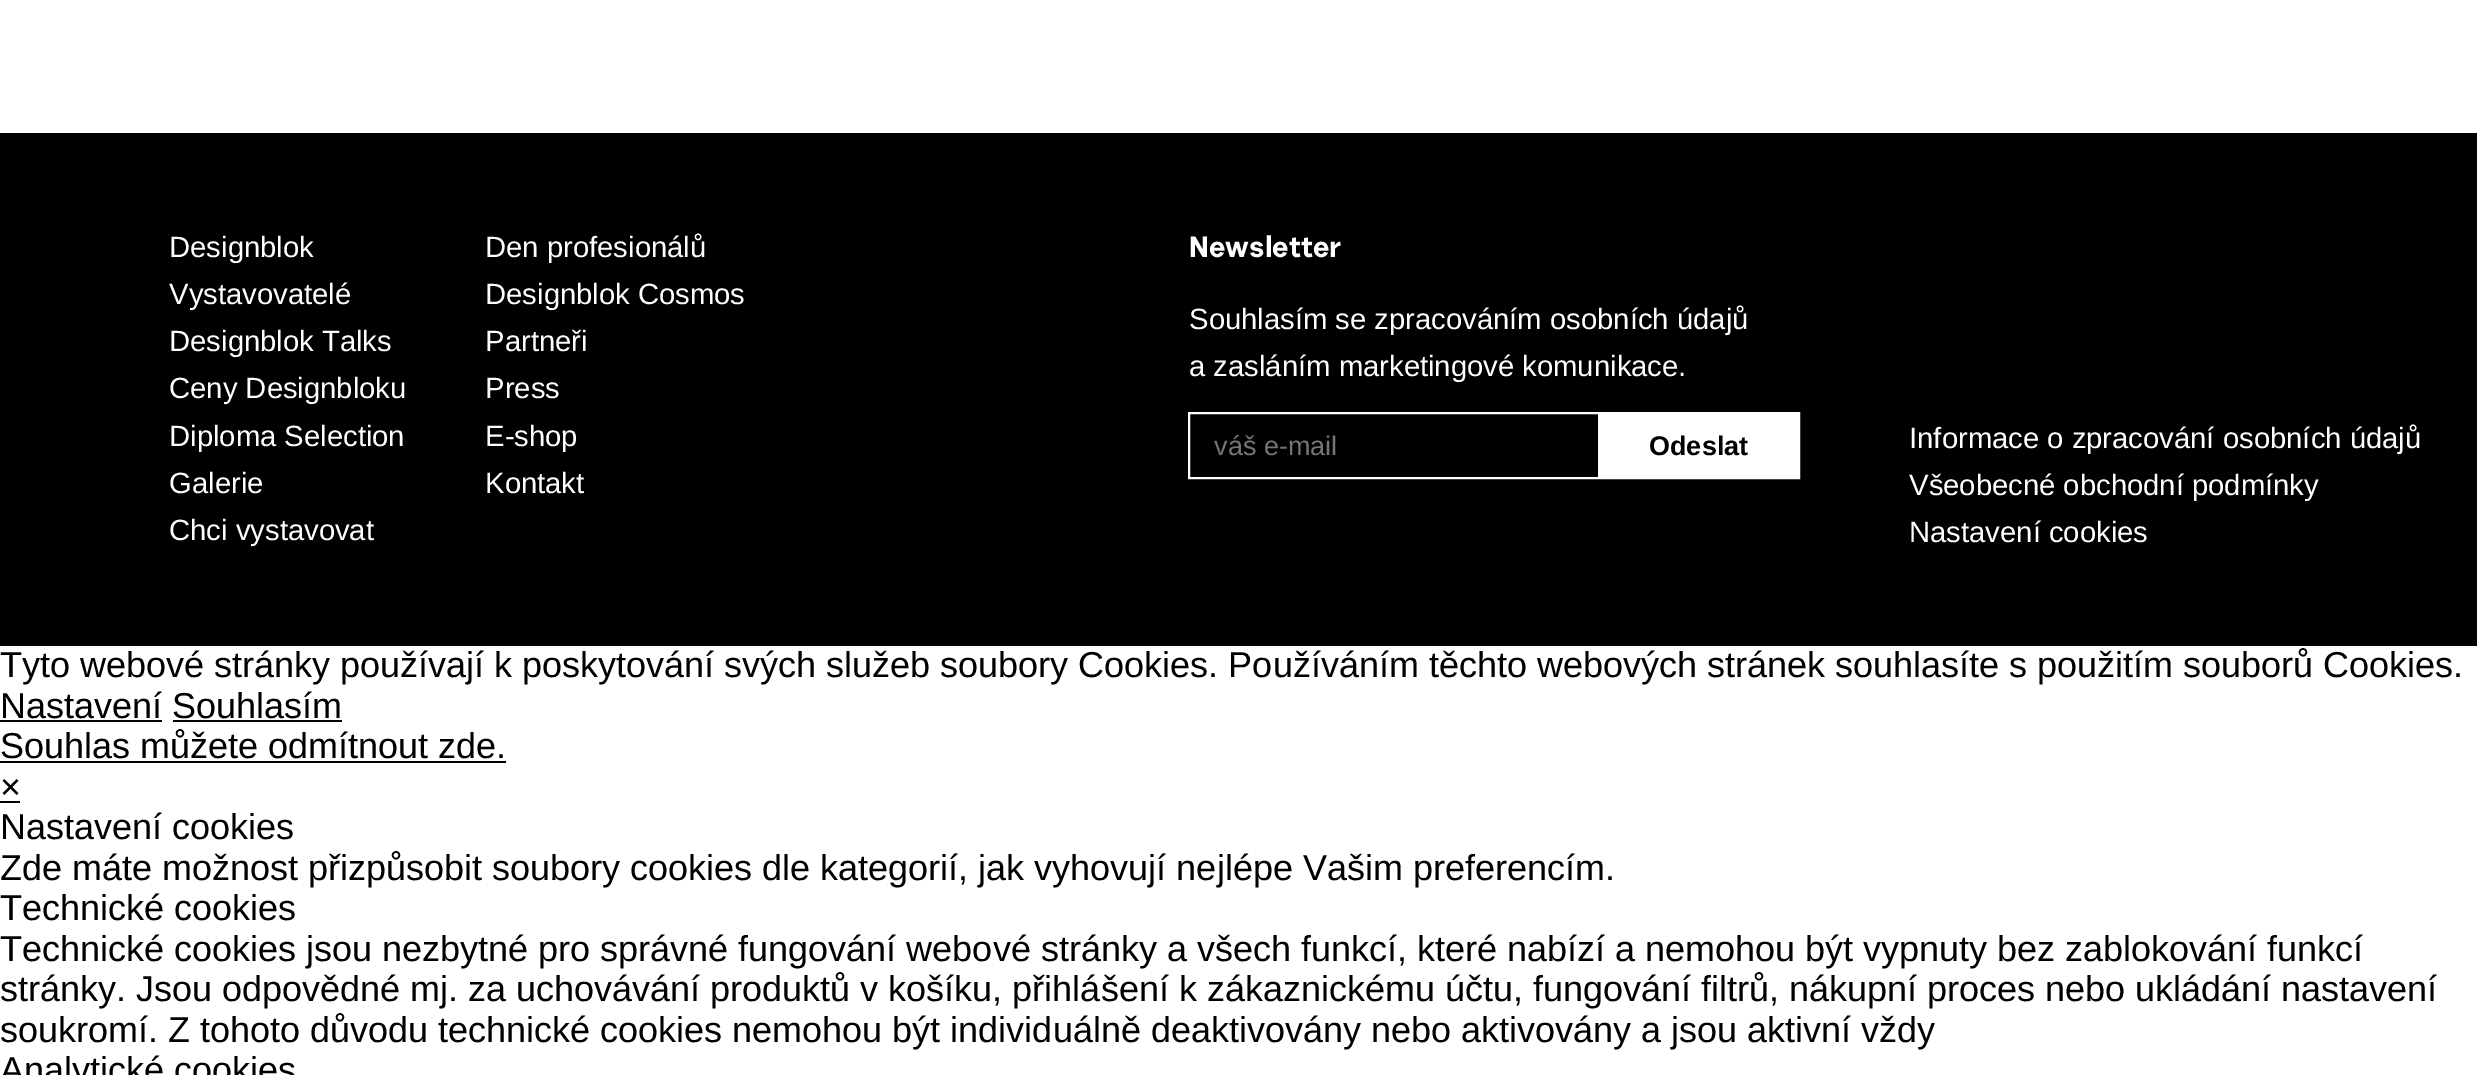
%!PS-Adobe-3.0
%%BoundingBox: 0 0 2477 1075
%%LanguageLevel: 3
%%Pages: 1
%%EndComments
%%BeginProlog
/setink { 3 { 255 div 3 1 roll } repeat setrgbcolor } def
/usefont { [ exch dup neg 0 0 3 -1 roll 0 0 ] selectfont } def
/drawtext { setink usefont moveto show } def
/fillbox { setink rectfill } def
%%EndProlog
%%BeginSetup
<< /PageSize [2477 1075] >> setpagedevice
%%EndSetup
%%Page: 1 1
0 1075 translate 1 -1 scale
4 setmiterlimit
0 0 2477 1075 255 255 255 fillbox
0 133 2477 513 0 0 0 fillbox
(Designblok) 169 257 /LiberationSans-Regular 29.25 255 255 255 drawtext
(Vystavovatelé) 169 304 /LiberationSans-Regular 29.25 255 255 255 drawtext
(Designblok Talks) 169 351 /LiberationSans-Regular 29.25 255 255 255 drawtext
(Ceny Designbloku) 169 398 /LiberationSans-Regular 29.25 255 255 255 drawtext
(Diploma Selection) 169 446 /LiberationSans-Regular 29.25 255 255 255 drawtext
(Galerie) 169 493 /LiberationSans-Regular 29.25 255 255 255 drawtext
(Chci vystavovat) 169 540 /LiberationSans-Regular 29.25 255 255 255 drawtext
(Den profesionálů) 485 257 /LiberationSans-Regular 29.25 255 255 255 drawtext
(Designblok Cosmos) 485 304 /LiberationSans-Regular 29.25 255 255 255 drawtext
(Partneři) 485 351 /LiberationSans-Regular 29.25 255 255 255 drawtext
(Press) 485 398 /LiberationSans-Regular 29.25 255 255 255 drawtext
(E-shop) 485 446 /LiberationSans-Regular 29.25 255 255 255 drawtext
(Kontakt) 485 493 /LiberationSans-Regular 29.25 255 255 255 drawtext
(Newsletter) 1189 257 /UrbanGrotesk-Bold 29.25 255 255 255 drawtext
(Souhlasím se zpracováním osobních údajů) 1189 329 /LiberationSans-Regular 29.25 255 255 255 drawtext
(a zasláním marketingové komunikace.) 1189 376 /LiberationSans-Regular 29.25 255 255 255 drawtext
2 setlinewidth
1189 413 610 65 rectstroke
(váš e-mail) 1214 455 /LiberationSans-Regular 27 117 117 117 drawtext
1598 414 200 63 255 255 255 fillbox
(Odeslat) 1649 455 /LiberationSans-Bold 27 0 0 0 drawtext
(Informace o zpracování osobních údajů) 1909 448 /LiberationSans-Regular 29.25 255 255 255 drawtext
(Všeobecné obchodní podmínky) 1909 495 /LiberationSans-Regular 29.25 255 255 255 drawtext
(Nastavení cookies) 1909 542 /LiberationSans-Regular 29.25 255 255 255 drawtext
(Tyto webové stránky používají k poskytování svých služeb soubory Cookies. Používáním těchto webových stránek souhlasíte s použitím souborů Cookies.) 0 677 /LiberationSans-Regular 36 0 0 0 drawtext
(Nastavení Souhlasím) 0 718 /LiberationSans-Regular 36 0 0 0 drawtext
0 720 162 2 0 0 0 fillbox
173 720 169 2 0 0 0 fillbox
(Souhlas můžete odmítnout zde.) 0 758 /LiberationSans-Regular 36 0 0 0 drawtext
0 761 506 2 0 0 0 fillbox
(×) 0 799 /LiberationSans-Regular 36 0 0 0 drawtext
0 801 20 2 0 0 0 fillbox
(Nastavení cookies) 0 839 /LiberationSans-Regular 36 0 0 0 drawtext
(Zde máte možnost přizpůsobit soubory cookies dle kategorií, jak vyhovují nejlépe Vašim preferencím.) 0 880 /LiberationSans-Regular 36 0 0 0 drawtext
(Technické cookies) 0 920 /LiberationSans-Regular 36 0 0 0 drawtext
(Technické cookies jsou nezbytné pro správné fungování webové stránky a všech funkcí, které nabízí a nemohou být vypnuty bez zablokování funkcí) 0 961 /LiberationSans-Regular 36 0 0 0 drawtext
(stránky. Jsou odpovědné mj. za uchovávání produktů v košíku, přihlášení k zákaznickému účtu, fungování filtrů, nákupní proces nebo ukládání nastavení) 0 1001 /LiberationSans-Regular 36 0 0 0 drawtext
(soukromí. Z tohoto důvodu technické cookies nemohou být individuálně deaktivovány nebo aktivovány a jsou aktivní vždy) 0 1042 /LiberationSans-Regular 36 0 0 0 drawtext
(Analytické cookies) 0 1082 /LiberationSans-Regular 36 0 0 0 drawtext
showpage
%%EOF
